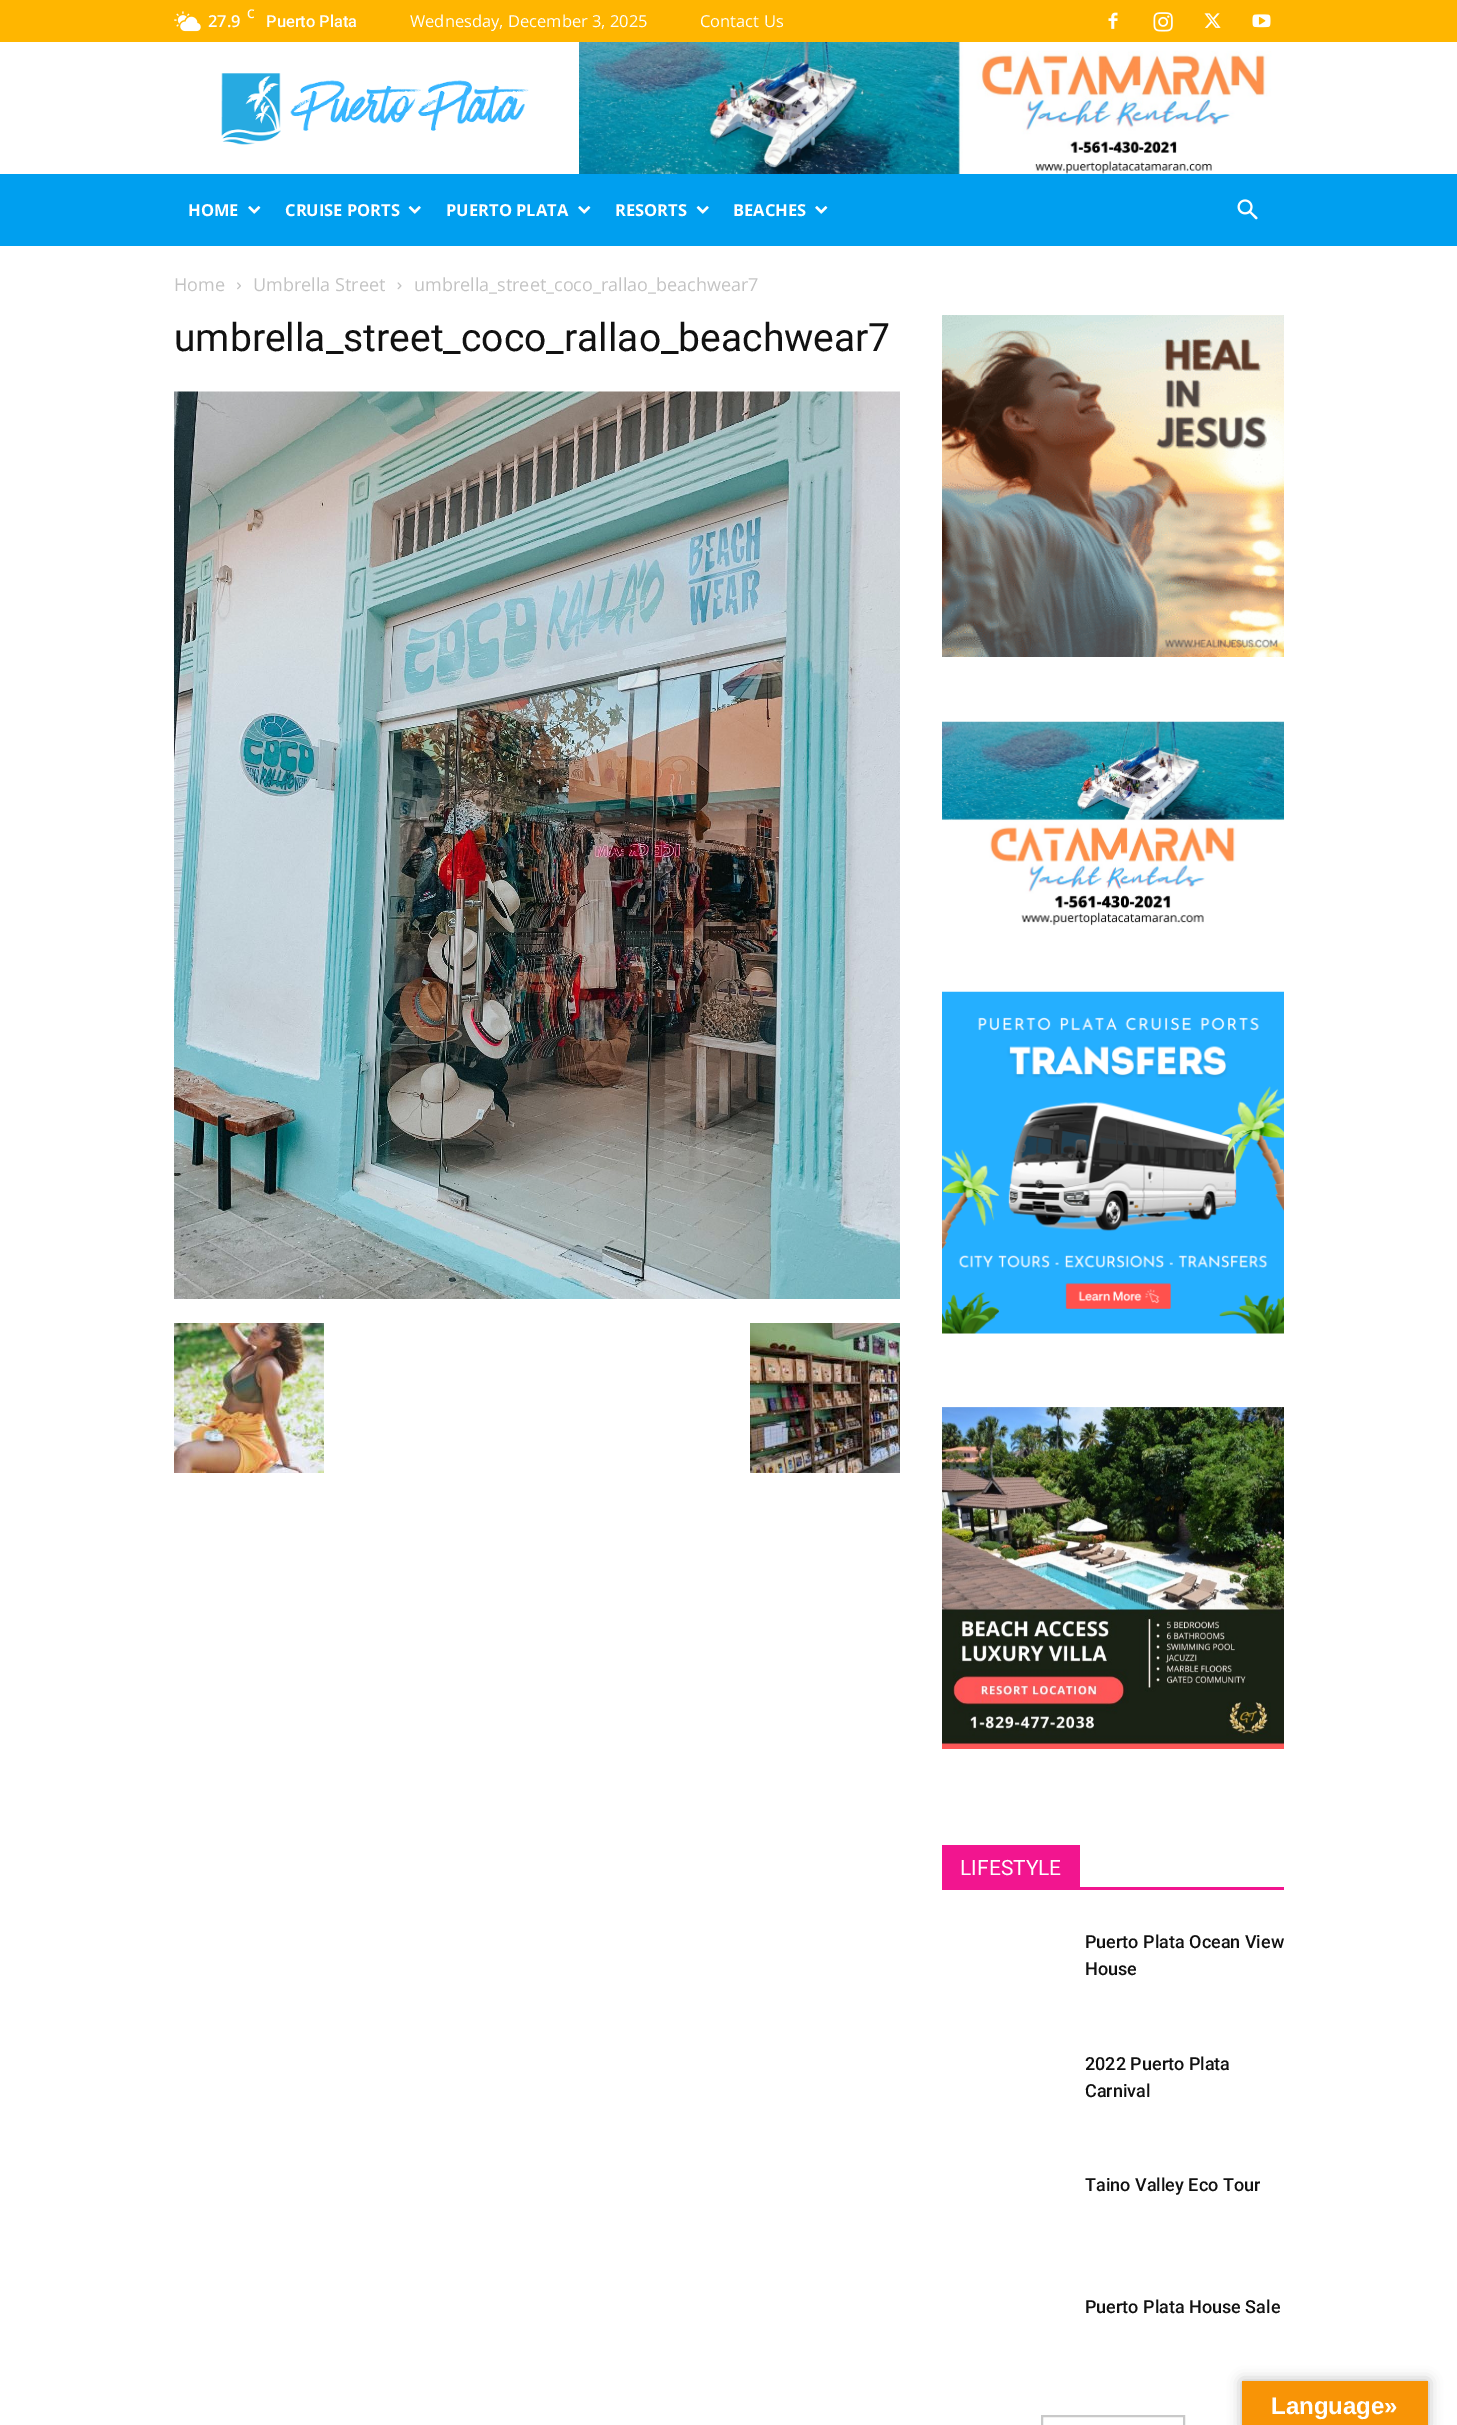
%!PS-Adobe-3.0
%%BoundingBox: 0 0 1457 2425
%%LanguageLevel: 3
%%Pages: 1
%%EndComments
%%BeginProlog
/setink { 3 { 255 div 3 1 roll } repeat setrgbcolor } def
/usefont { [ exch dup neg 0 0 3 -1 roll 0 0 ] selectfont } def
/drawtext { setink usefont moveto show } def
/fillbox { setink rectfill } def
/setalpha { dup .setfillconstantalpha .setstrokeconstantalpha } def
/rrect { 5 dict begin { /r /h /w /y /x } { exch def } forall
  x r add y moveto x w add y 2 copy h add r arct x w add y h add x 1 index r arct
  x y h add x y r arct x y 2 copy exch w add exch r arct closepath end } def
/softshadow { 12 dict begin { /a /b /q /h /w /y /x } { exch def } forall gsave /was 0 def
  9 -2 -9 { dup b mul 4 div /e exch def 1 sub .425 mul 2.718 exch exp 1 add a .99 .min exch div /now exch def
    1 1 now sub 1 was sub div sub setalpha /was now def
    w h .min e 2 mul add 0 gt { x e sub y e sub w e 2 mul add h e 2 mul add
      q e add b .6 mul add w h .min 2 div e add .min 0 .max rrect fill } if } for grestore end } def
/drawimage { 5 dict begin { /h /w /y /x /name } { exch def } forall
  gsave x y translate w h scale
  w h 8 [w 0 0 h 0 0] name (r) file false 3 colorimage grestore end } def
%%EndProlog
%%BeginSetup
<< /PageSize [1457 2425] /PageUsesTransparency true >> setpagedevice
%%EndSetup
%%Page: 1 1
0 .pushpdf14devicefilter
0 2425 translate 1 -1 scale
4 setmiterlimit
0 0 1457 2425 255 255 255 fillbox
0 0 1457 42 255 182 0 fillbox
(assets/img1.rgb) 174 11 27 21 drawimage
(C) 247 18 /OpenSans-SemiBold 12 255 255 255 drawtext
(27.9) 208 27 /OpenSans-SemiBold 16.5 255 255 255 drawtext
(Puerto Plata) 266 27 /Roboto-Medium 16.5 255 255 255 drawtext
(Wednesday, December 3, 2025) 410 27 /OpenSans-Regular 16.5 255 255 255 drawtext
(Contact Us) 700 27 /OpenSans-Regular 16.5 255 255 255 drawtext
(assets/img2.rgb) 1108 12 10 17 drawimage
(assets/img3.rgb) 1153 12 20 20 drawimage
(assets/img4.rgb) 1204 13 17 15 drawimage
(assets/img5.rgb) 1252 14 19 14 drawimage
(assets/img6.rgb) 221 73 308 72 drawimage
(assets/img7.rgb) 579 42 705 132 drawimage
0 174 1457 72 0 159 239 fillbox
(HOME) 188 216 /OpenSans-Bold 16.5 255 255 255 drawtext
(assets/img8.rgb) 248 206 13 8 drawimage
(CRUISE PORTS) 285 216 /OpenSans-Bold 16.5 255 255 255 drawtext
(assets/img9.rgb) 408 206 13 8 drawimage
(PUERTO PLATA) 446 216 /OpenSans-Bold 16.5 255 255 255 drawtext
(assets/img8.rgb) 578 206 13 8 drawimage
(RESORTS) 615 216 /OpenSans-Bold 16.5 255 255 255 drawtext
(assets/img9.rgb) 696 206 13 8 drawimage
(BEACHES) 733 216 /OpenSans-Bold 16.5 255 255 255 drawtext
(assets/img8.rgb) 815 206 13 8 drawimage
(assets/img10.rgb) 1237 199 21 21 drawimage
(Home) 174 291 /OpenSans-Regular 18 195 195 195 drawtext
(assets/img11.rgb) 237 282 4 8 drawimage
(Umbrella Street) 253 291 /OpenSans-Regular 18 195 195 195 drawtext
(assets/img12.rgb) 397 282 5 8 drawimage
(umbrella_street_coco_rallao_beachwear7) 414 291 /OpenSans-Regular 18 195 195 195 drawtext
(umbrella_street_coco_rallao_beachwear7) 174 351 /Roboto-Regular 39 17 17 17 drawtext
(assets/img13.rgb) 174 391 726 908 drawimage
(assets/img14.rgb) 174 1323 150 150 drawimage
(assets/img15.rgb) 750 1323 150 150 drawimage
(assets/img16.rgb) 942 315 342 342 drawimage
(assets/img17.rgb) 942 721 342 205 drawimage
(assets/img18.rgb) 942 991 342 343 drawimage
(assets/img19.rgb) 942 1407 342 342 drawimage
942 1887 342 3 242 21 143 fillbox
942 1845 138 42 242 21 143 fillbox
(LIFESTYLE) 960 1875 /Roboto-Regular 21 255 255 255 drawtext
(Puerto Plata Ocean View) 1085 1948 /Roboto-Medium 18 17 17 17 drawtext
(House) 1085 1975 /Roboto-Medium 18 17 17 17 drawtext
(2022 Puerto Plata) 1085 2070 /Roboto-Medium 18 17 17 17 drawtext
(Carnival) 1085 2097 /Roboto-Medium 18 17 17 17 drawtext
(Taino Valley Eco Tour) 1085 2191 /Roboto-Medium 18 17 17 17 drawtext
(Puerto Plata House Sale) 1085 2313 /Roboto-Medium 18 17 17 17 drawtext
201 201 201 setink
2 setlinewidth
1042 2416 142 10 rectstroke
0 0 0 setink
1242 2381 186 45 0 7 0.3 softshadow
1242 2381 186 44 248 148 6 fillbox
(Language») 1271 2414 /LiberationSans-Bold 24 255 255 255 drawtext
.poppdf14devicefilter showpage
%%EOF
